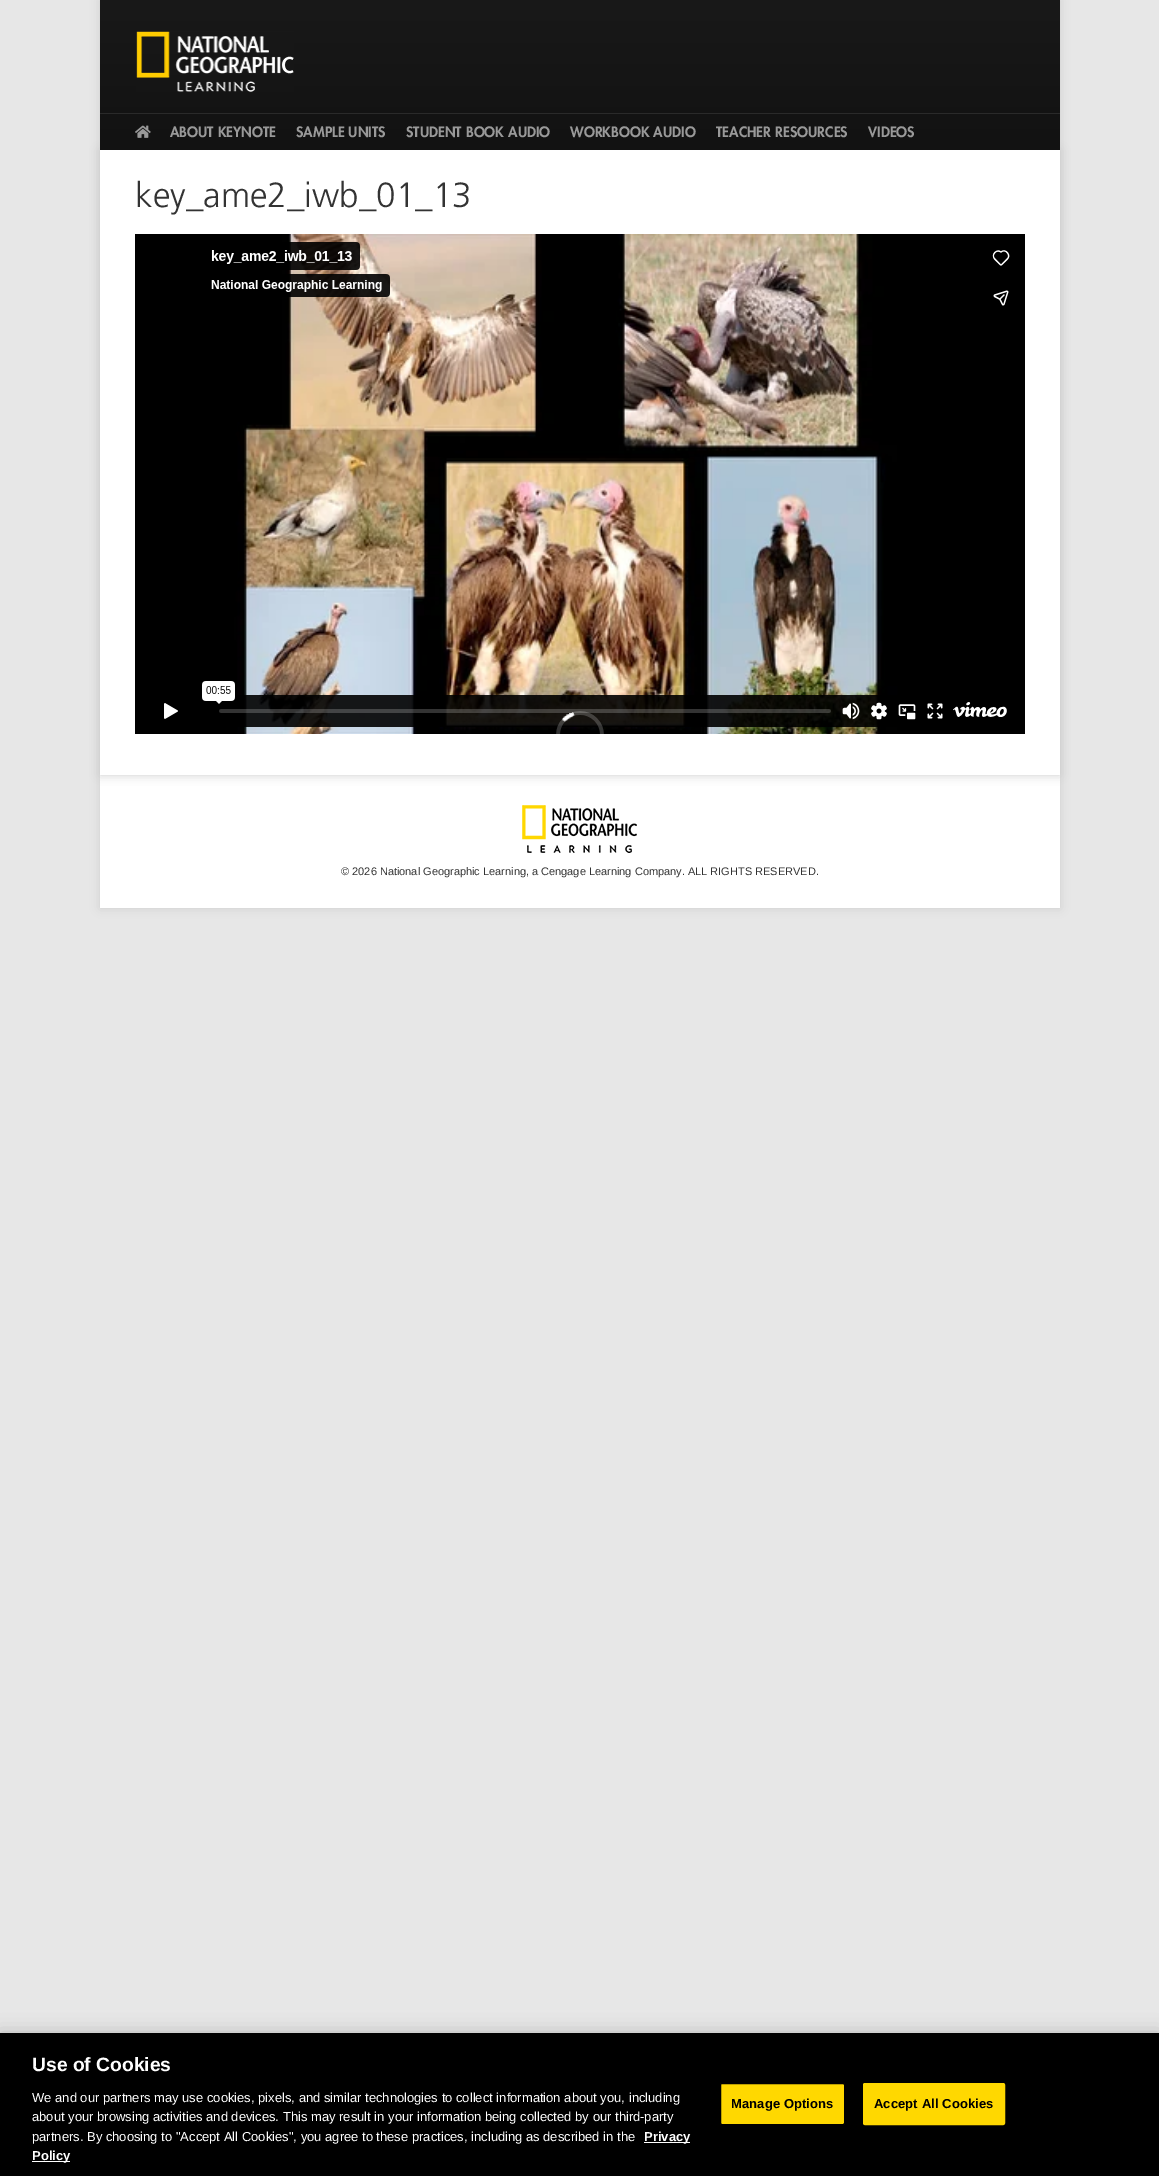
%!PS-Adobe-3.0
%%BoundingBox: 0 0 1159 2176
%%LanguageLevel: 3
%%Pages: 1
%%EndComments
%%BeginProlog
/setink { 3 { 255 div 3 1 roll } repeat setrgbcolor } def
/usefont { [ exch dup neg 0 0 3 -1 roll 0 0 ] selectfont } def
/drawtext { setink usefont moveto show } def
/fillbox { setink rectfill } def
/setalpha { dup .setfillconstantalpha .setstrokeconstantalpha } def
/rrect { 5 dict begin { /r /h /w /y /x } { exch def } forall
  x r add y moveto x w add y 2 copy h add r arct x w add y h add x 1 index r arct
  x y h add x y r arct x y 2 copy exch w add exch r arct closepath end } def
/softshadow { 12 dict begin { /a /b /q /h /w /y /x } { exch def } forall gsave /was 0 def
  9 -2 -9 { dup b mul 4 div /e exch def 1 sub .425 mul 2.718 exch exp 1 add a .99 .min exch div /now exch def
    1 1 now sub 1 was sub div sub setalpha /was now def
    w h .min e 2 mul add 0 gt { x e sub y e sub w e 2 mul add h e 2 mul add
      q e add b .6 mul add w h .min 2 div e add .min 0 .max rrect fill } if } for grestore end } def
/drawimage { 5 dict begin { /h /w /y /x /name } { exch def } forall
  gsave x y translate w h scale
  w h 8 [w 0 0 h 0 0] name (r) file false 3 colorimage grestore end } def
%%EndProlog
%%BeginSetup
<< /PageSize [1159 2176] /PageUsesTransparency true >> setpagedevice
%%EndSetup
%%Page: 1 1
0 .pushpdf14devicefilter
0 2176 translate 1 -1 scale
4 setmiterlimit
0 0 1159 2176 231 231 231 fillbox
204 204 204 setink
100 0 960 908 0 5 1 softshadow
100 150 960 758 255 255 255 fillbox
gsave
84 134 moveto 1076 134 lineto 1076 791 lineto 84 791 lineto closepath 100 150 moveto 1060 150 lineto 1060 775 lineto 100 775 lineto closepath eoclip newpath
204 204 204 setink
100 150 960 625 0 5 1 softshadow
grestore
gsave 100 0 moveto 1060 0 lineto 1060 150 lineto 100 150 lineto closepath clip newpath
<< /ShadingType 2 /ColorSpace /DeviceRGB /Coords [100 0 100 150] /Extend [true true] /Function << /FunctionType 2 /Domain [0 1] /C0 [0.098 0.098 0.098] /C1 [0.071 0.071 0.071] /N 1 >> >> shfill grestore
(assets/img1.rgb) 136 31 158 61 drawimage
100 113 960 1 42 42 42 fillbox
(assets/img2.rgb) 135 125 16 13 drawimage
(ABOUT KEYNOTE) 170 137 /Futura-Black 14 153 153 153 drawtext
(SAMPLE UNITS) 296 137 /Futura-Black 14 153 153 153 drawtext
(STUDENT BOOK AUDIO) 406 137 /Futura-Black 14 153 153 153 drawtext
(WORKBOOK AUDIO) 570 137 /Futura-Black 14 153 153 153 drawtext
(TEACHER RESOURCES) 716 137 /Futura-Black 14 153 153 153 drawtext
(VIDEOS) 868 137 /Futura-Black 14 153 153 153 drawtext
(key_ame2_iwb_01_13) 135 207 /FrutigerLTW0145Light-Light 35 51 51 51 drawtext
(assets/img3.rgb) 135 234 890 500 drawimage
(assets/img4.rgb) 522 805 115 48 drawimage
(© 2026 National Geographic Learning, a Cengage Learning Company. ALL RIGHTS RESERVED.) 341 875 /LiberationSans-Regular 11 51 51 51 drawtext
0 0 0 setink
0 2033 1159 143 0 9 0.2 softshadow
0 2033 1159 143 0 0 0 fillbox
(Use of Cookies) 32 2071 /LiberationSans-Bold 19.25 255 255 255 drawtext
(We and our partners may use cookies, pixels, and similar technologies to collect information about you, including) 32 2102 /LiberationSans-Regular 13 255 255 255 drawtext
(about your browsing activities and devices. This may result in your information being collected by our third-party) 32 2121 /LiberationSans-Regular 13 255 255 255 drawtext
(partners. By choosing to "Accept All Cookies", you agree to these practices, including as described in the) 32 2141 /LiberationSans-Regular 13 255 255 255 drawtext
644 2142 46 1 255 255 255 fillbox
(Privacy) 644 2141 /LiberationSans-Bold 13 255 255 255 drawtext
32 2161 38 1 255 255 255 fillbox
(Policy) 32 2160 /LiberationSans-Bold 13 255 255 255 drawtext
255 216 0 setink
720.5 2083.5 124 41 1.5 rrect gsave fill grestore
0 0 0 setink
stroke
731 2108 moveto 0.1 0 (Manage Options) ashow
255 216 0 setink
863.5 2083.5 141 41 1.5 rrect gsave fill grestore
stroke
0 0 0 setink
874 2108 moveto 0.1 0 (Accept All Cookies) ashow
.poppdf14devicefilter showpage
%%EOF
